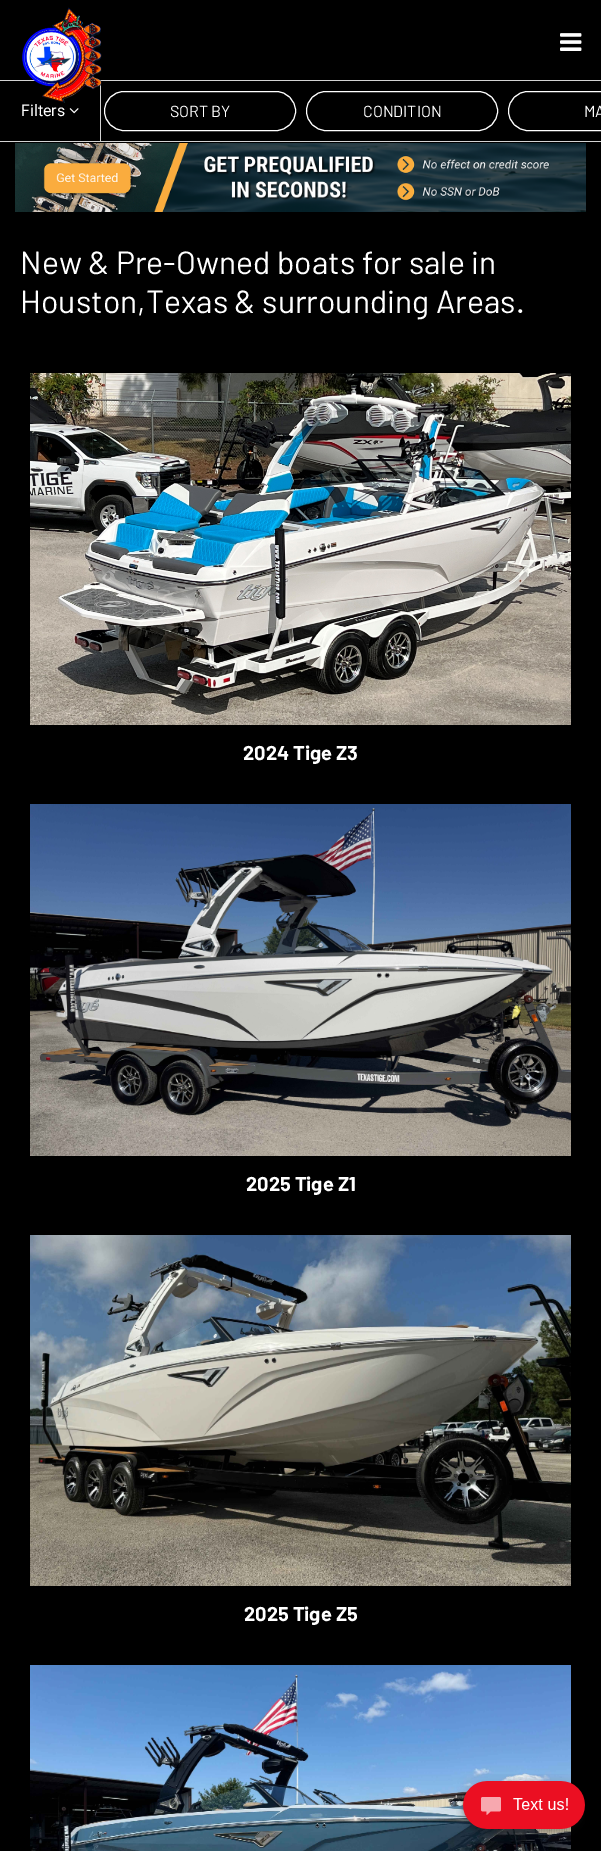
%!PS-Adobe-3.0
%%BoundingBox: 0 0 601 1851
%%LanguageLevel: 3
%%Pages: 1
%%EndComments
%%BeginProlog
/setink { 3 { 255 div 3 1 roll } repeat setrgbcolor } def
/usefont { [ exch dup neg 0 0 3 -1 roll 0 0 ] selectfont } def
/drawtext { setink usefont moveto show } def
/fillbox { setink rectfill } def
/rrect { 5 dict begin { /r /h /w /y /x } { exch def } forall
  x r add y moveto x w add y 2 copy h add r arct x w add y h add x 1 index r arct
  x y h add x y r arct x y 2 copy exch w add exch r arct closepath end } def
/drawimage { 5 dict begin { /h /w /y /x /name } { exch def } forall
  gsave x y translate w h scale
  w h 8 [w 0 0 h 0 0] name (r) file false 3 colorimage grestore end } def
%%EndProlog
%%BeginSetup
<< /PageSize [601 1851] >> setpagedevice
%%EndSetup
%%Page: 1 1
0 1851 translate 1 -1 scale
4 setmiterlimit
0 0 601 1851 0 0 0 fillbox
0 80 601 1 211 211 211 fillbox
100 81 1 60 211 211 211 fillbox
(assets/img1.rgb) 22 7 80 96 drawimage
(assets/img2.rgb) 560 33 22 18 drawimage
0 141 601 1 211 211 211 fillbox
(Filters) 21 116 /Roboto-Regular 16 255 255 255 drawtext
(assets/img3.rgb) 69 108 10 6 drawimage
104.5 91.5 191 39 19.5 rrect stroke
(SORT BY) 170 117 /Barlow-Regular 16 255 255 255 drawtext
306.5 91.5 191 39 19.5 rrect stroke
(CONDITION) 363 117 /Barlow-Regular 16 255 255 255 drawtext
508.5 91.5 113 39 19.5 rrect stroke
(MA) 584 117 /Barlow-Regular 16 255 255 255 drawtext
(assets/img4.rgb) 15 143 571 69 drawimage
(New & Pre-Owned boats for sale in) 20 274 /Barlow-Regular 32 255 255 255 drawtext
(Houston,Texas & surrounding Areas.) 20 313 /Barlow-Regular 32 255 255 255 drawtext
(assets/img5.rgb) 30 373 541 352 drawimage
(2024 Tige Z3) 243 760 /Barlow-Bold 20 255 255 255 drawtext
(assets/img6.rgb) 30 804 541 352 drawimage
(2025 Tige Z1) 246 1191 /Barlow-Bold 20 255 255 255 drawtext
(assets/img7.rgb) 30 1235 541 351 drawimage
(2025 Tige Z5) 244 1621 /Barlow-Bold 20 255 255 255 drawtext
(assets/img8.rgb) 30 1665 541 186 drawimage
(assets/img9.rgb) 456 1774 129 64 drawimage
showpage
%%EOF
